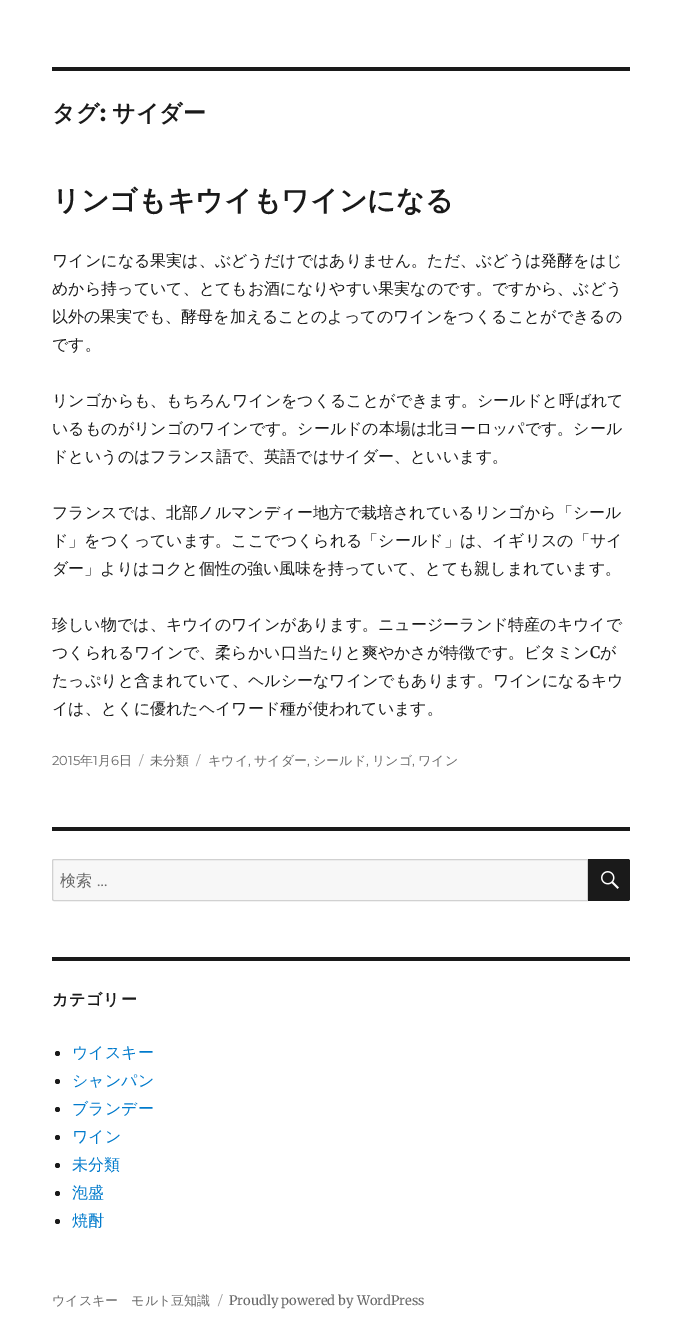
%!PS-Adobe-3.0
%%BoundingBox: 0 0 682 1339
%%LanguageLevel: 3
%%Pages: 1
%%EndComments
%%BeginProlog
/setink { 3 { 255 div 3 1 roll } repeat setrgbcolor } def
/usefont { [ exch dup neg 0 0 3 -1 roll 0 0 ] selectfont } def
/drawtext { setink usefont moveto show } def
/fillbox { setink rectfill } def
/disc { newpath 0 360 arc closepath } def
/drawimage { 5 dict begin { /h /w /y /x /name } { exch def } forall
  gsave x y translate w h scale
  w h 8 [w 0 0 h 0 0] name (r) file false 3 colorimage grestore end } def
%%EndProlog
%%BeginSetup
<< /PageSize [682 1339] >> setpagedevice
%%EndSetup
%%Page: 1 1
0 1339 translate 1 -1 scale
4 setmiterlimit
0 0 682 1339 255 255 255 fillbox
52 67 578 4 26 26 26 fillbox
(タグ) 52 121 /WenQuanYiZenHei-Bold 23 26 26 26 drawtext
(:) 100 121 /Montserrat-Bold 23 26 26 26 drawtext
(サイダー) 112 121 /WenQuanYiZenHei-Bold 23 26 26 26 drawtext
(リンゴもキウイもワインになる) 52 210 /WenQuanYiZenHei-Bold 28 26 26 26 drawtext
(ワインになる果実は、ぶどうだけではありません。ただ、ぶどうは発酵をはじ) 52 266 /WenQuanYiZenHei-Medium 16 26 26 26 drawtext
(めから持っていて、とてもお酒になりやすい果実なのです。ですから、ぶどう) 52 294 /WenQuanYiZenHei-Medium 16 26 26 26 drawtext
(以外の果実でも、酵母を加えることのよってのワインをつくることができるの) 52 322 /WenQuanYiZenHei-Medium 16 26 26 26 drawtext
(です。) 52 350 /WenQuanYiZenHei-Medium 16 26 26 26 drawtext
(リンゴからも、もちろんワインをつくることができます。シールドと呼ばれて) 52 406 /WenQuanYiZenHei-Medium 16 26 26 26 drawtext
(いるものがリンゴのワインです。シールドの本場は北ヨーロッパです。シール) 52 434 /WenQuanYiZenHei-Medium 16 26 26 26 drawtext
(ドというのはフランス語で、英語ではサイダー、といいます。) 52 462 /WenQuanYiZenHei-Medium 16 26 26 26 drawtext
(フランスでは、北部ノルマンディー地方で栽培されているリンゴから「シール) 52 518 /WenQuanYiZenHei-Medium 16 26 26 26 drawtext
(ド」をつくっています。ここでつくられる「シールド」は、イギリスの「サイ) 52 546 /WenQuanYiZenHei-Medium 16 26 26 26 drawtext
(ダー」よりはコクと個性の強い風味を持っていて、とても親しまれています。) 52 574 /WenQuanYiZenHei-Medium 16 26 26 26 drawtext
(珍しい物では、キウイのワインがあります。ニュージーランド特産のキウイで) 52 630 /WenQuanYiZenHei-Medium 16 26 26 26 drawtext
(つくられるワインで、柔らかい口当たりと爽やかさが特徴です。ビタミン) 52 658 /WenQuanYiZenHei-Medium 16 26 26 26 drawtext
(C) 590 658 /Merriweather-Regular 16 26 26 26 drawtext
(が) 600 658 /WenQuanYiZenHei-Medium 16 26 26 26 drawtext
(たっぷりと含まれていて、ヘルシーなワインでもあります。ワインになるキウ) 52 686 /WenQuanYiZenHei-Medium 16 26 26 26 drawtext
(イは、とくに優れたヘイワード種が使われています。) 52 714 /WenQuanYiZenHei-Medium 16 26 26 26 drawtext
(2015) 52 765 /Montserrat-Regular 13 104 104 104 drawtext
(年) 80 765 /WenQuanYiZenHei-Medium 13 104 104 104 drawtext
(1) 93 765 /Montserrat-Regular 13 104 104 104 drawtext
(月) 98 765 /WenQuanYiZenHei-Medium 13 104 104 104 drawtext
(6) 111 765 /Montserrat-Regular 13 104 104 104 drawtext
(日) 119 765 /WenQuanYiZenHei-Medium 13 104 104 104 drawtext
(/) 139 765 /Montserrat-Regular 13 149 149 149 drawtext
(未分類) 150 765 /WenQuanYiZenHei-Medium 13 104 104 104 drawtext
(/) 196 765 /Montserrat-Regular 13 149 149 149 drawtext
(キウイ) 208 765 /WenQuanYiZenHei-Medium 13 104 104 104 drawtext
(,) 248 765 /Montserrat-Regular 13 104 104 104 drawtext
(サイダー) 254 765 /WenQuanYiZenHei-Medium 13 104 104 104 drawtext
(,) 307 765 /Montserrat-Regular 13 104 104 104 drawtext
(シールド) 313 765 /WenQuanYiZenHei-Medium 13 104 104 104 drawtext
(,) 366 765 /Montserrat-Regular 13 104 104 104 drawtext
(リンゴ) 372 765 /WenQuanYiZenHei-Medium 13 104 104 104 drawtext
(,) 412 765 /Montserrat-Regular 13 104 104 104 drawtext
(ワイン) 418 765 /WenQuanYiZenHei-Medium 13 104 104 104 drawtext
52 827 578 4 26 26 26 fillbox
247 247 247 setink
54 859.5 moveto 587.5 859.5 lineto 587.5 900.5 lineto 54 900.5 lineto 53 900.5 52.5 900 52.5 899 curveto 52.5 861 lineto 52.5 860 53 859.5 54 859.5 curveto closepath gsave fill grestore
209 209 209 setink
stroke
(検索) 60 886 /WenQuanYiZenHei-Medium 16 104 104 104 drawtext
(…) 97 886 /Montserrat-Regular 16 104 104 104 drawtext
26 26 26 setink
588 859 moveto 628 859 lineto 629 859 630 860 630 861 curveto 630 899 lineto 630 900 629 901 628 901 curveto 588 901 lineto closepath fill
(assets/img1.rgb) 601 871 18 18 drawimage
52 957 578 4 26 26 26 fillbox
/WenQuanYiZenHei-Bold 16 usefont
52 1005 moveto 0.75 0 (カテゴリー) ashow
57.5 1053.5 2.5 disc fill
(ウイスキー) 72 1058 /WenQuanYiZenHei-Medium 16 0 122 204 drawtext
26 26 26 setink
57.5 1081.5 2.5 disc fill
(シャンパン) 72 1086 /WenQuanYiZenHei-Medium 16 0 122 204 drawtext
26 26 26 setink
57.5 1109.5 2.5 disc fill
(ブランデー) 72 1114 /WenQuanYiZenHei-Medium 16 0 122 204 drawtext
26 26 26 setink
57.5 1137.5 2.5 disc fill
(ワイン) 72 1142 /WenQuanYiZenHei-Medium 16 0 122 204 drawtext
26 26 26 setink
57.5 1165.5 2.5 disc fill
(未分類) 72 1170 /WenQuanYiZenHei-Medium 16 0 122 204 drawtext
26 26 26 setink
57.5 1193.5 2.5 disc fill
(泡盛) 72 1198 /WenQuanYiZenHei-Medium 16 0 122 204 drawtext
26 26 26 setink
57.5 1221.5 2.5 disc fill
(焼酎) 72 1226 /WenQuanYiZenHei-Medium 16 0 122 204 drawtext
(ウイスキー　モルト豆知識) 52 1305 /WenQuanYiZenHei-Medium 13 104 104 104 drawtext
(/) 218 1305 /Montserrat-Regular 13 149 149 149 drawtext
(Proudly powered by WordPress) 229 1305 /Merriweather-Regular 13 104 104 104 drawtext
showpage
%%EOF
